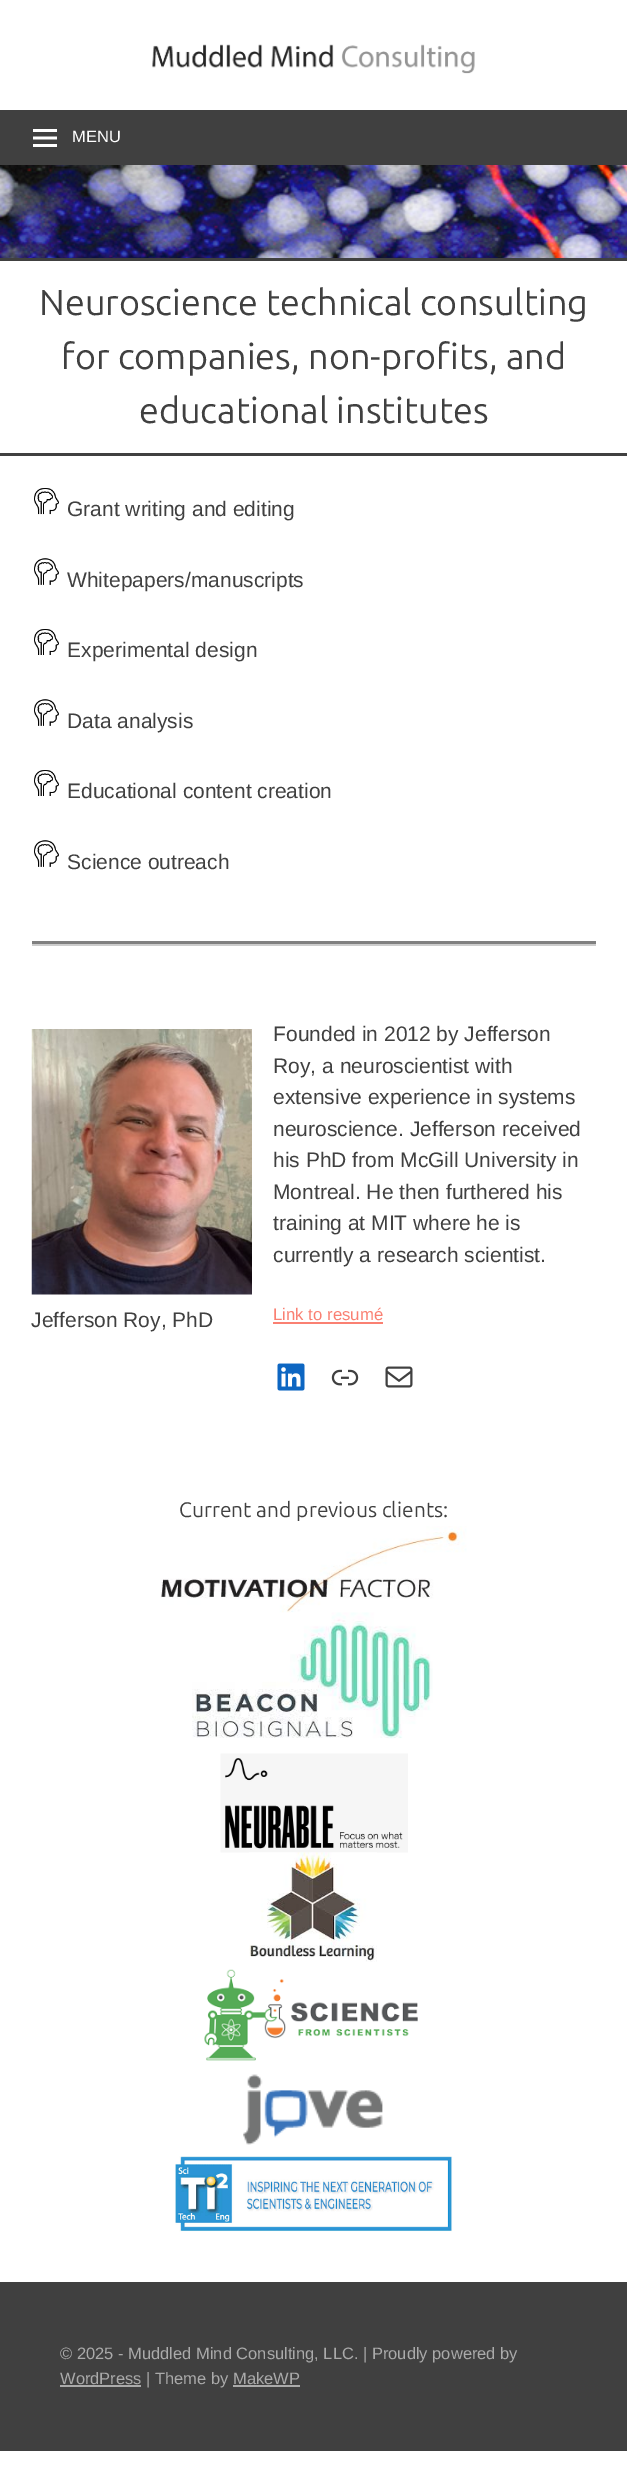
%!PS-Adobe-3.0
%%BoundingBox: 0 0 627 2479
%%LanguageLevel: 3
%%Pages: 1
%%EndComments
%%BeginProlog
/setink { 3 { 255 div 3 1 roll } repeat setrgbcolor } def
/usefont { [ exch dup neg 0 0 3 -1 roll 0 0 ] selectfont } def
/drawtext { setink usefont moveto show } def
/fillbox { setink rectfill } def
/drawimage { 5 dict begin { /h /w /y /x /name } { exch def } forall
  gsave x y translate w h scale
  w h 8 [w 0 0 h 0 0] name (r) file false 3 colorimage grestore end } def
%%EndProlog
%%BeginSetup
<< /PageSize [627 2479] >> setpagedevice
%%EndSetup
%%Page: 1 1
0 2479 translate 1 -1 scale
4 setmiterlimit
0 0 627 2479 255 255 255 fillbox
(assets/img1.rgb) 152 44 323 30 drawimage
0 110 627 55 64 64 64 fillbox
(assets/img2.rgb) 33 129 24 18 drawimage
(MENU) 72 142 /LiberationSans-Regular 16.5 255 255 255 drawtext
(assets/img3.rgb) 0 165 627 93 drawimage
0 258 627 3 64 64 64 fillbox
0 453 627 3 64 64 64 fillbox
(Neuroscience technical consulting) 39 315 /Ubuntu-Regular 36 64 64 64 drawtext
(for companies, non-profits, and) 61 369 /Ubuntu-Regular 36 64 64 64 drawtext
(educational institutes) 139 423 /Ubuntu-Regular 36 64 64 64 drawtext
(assets/img4.rgb) 34 488 25 27 drawimage
(Grant writing and editing) 67 516 /LiberationSans-Regular 21 64 64 64 drawtext
(assets/img5.rgb) 34 558 25 27 drawimage
(Whitepapers/manuscripts) 67 587 /LiberationSans-Regular 21 64 64 64 drawtext
(assets/img6.rgb) 34 629 25 26 drawimage
(Experimental design) 67 657 /LiberationSans-Regular 21 64 64 64 drawtext
(assets/img5.rgb) 34 699 25 27 drawimage
(Data analysis) 67 728 /LiberationSans-Regular 21 64 64 64 drawtext
(assets/img6.rgb) 34 770 25 26 drawimage
(Educational content creation) 67 798 /LiberationSans-Regular 21 64 64 64 drawtext
(assets/img5.rgb) 34 840 25 27 drawimage
(Science outreach) 67 869 /LiberationSans-Regular 21 64 64 64 drawtext
32 944 564 2 204 204 204 fillbox
32 941 564 3 128 128 128 fillbox
(Founded in 2012 by Jefferson) 273 1041 /LiberationSans-Regular 21 64 64 64 drawtext
(Roy, a neuroscientist with) 273 1073 /LiberationSans-Regular 21 64 64 64 drawtext
(extensive experience in systems) 273 1104 /LiberationSans-Regular 21 64 64 64 drawtext
(neuroscience. Jefferson received) 273 1136 /LiberationSans-Regular 21 64 64 64 drawtext
(his PhD from McGill University in) 273 1167 /LiberationSans-Regular 21 64 64 64 drawtext
(Montreal. He then furthered his) 273 1199 /LiberationSans-Regular 21 64 64 64 drawtext
(training at MIT where he is) 273 1230 /LiberationSans-Regular 21 64 64 64 drawtext
(currently a research scientist.) 273 1262 /LiberationSans-Regular 21 64 64 64 drawtext
(assets/img7.rgb) 31 1029 221 266 drawimage
(Jefferson Roy, PhD) 31 1327 /LiberationSans-Regular 21 64 64 64 drawtext
(Link to resumé) 273 1320 /LiberationSans-Regular 16.75 250 128 114 drawtext
273 1322 110 2 250 128 114 fillbox
(assets/img8.rgb) 277 1363 28 28 drawimage
(assets/img9.rgb) 331 1369 28 17 drawimage
(assets/img10.rgb) 385 1366 28 22 drawimage
(Current and previous clients:) 179 1517 /Ubuntu-Regular 21 64 64 64 drawtext
(assets/img11.rgb) 160 1526 307 87 drawimage
(assets/img12.rgb) 192 1612 241 127 drawimage
(assets/img13.rgb) 220 1753 188 100 drawimage
(assets/img14.rgb) 249 1852 128 110 drawimage
(assets/img15.rgb) 204 1969 214 92 drawimage
(assets/img16.rgb) 243 2074 140 71 drawimage
(assets/img17.rgb) 175 2156 278 76 drawimage
0 2282 627 169 64 64 64 fillbox
(© 2025 - Muddled Mind Consulting, LLC. | Proudly powered by) 60 2359 /LiberationSans-Regular 16.5 170 170 170 drawtext
60 2385 81 2 170 170 170 fillbox
(WordPress | Theme by MakeWP) 60 2384 /LiberationSans-Regular 16.5 170 170 170 drawtext
233 2385 67 2 170 170 170 fillbox
showpage
%%EOF
